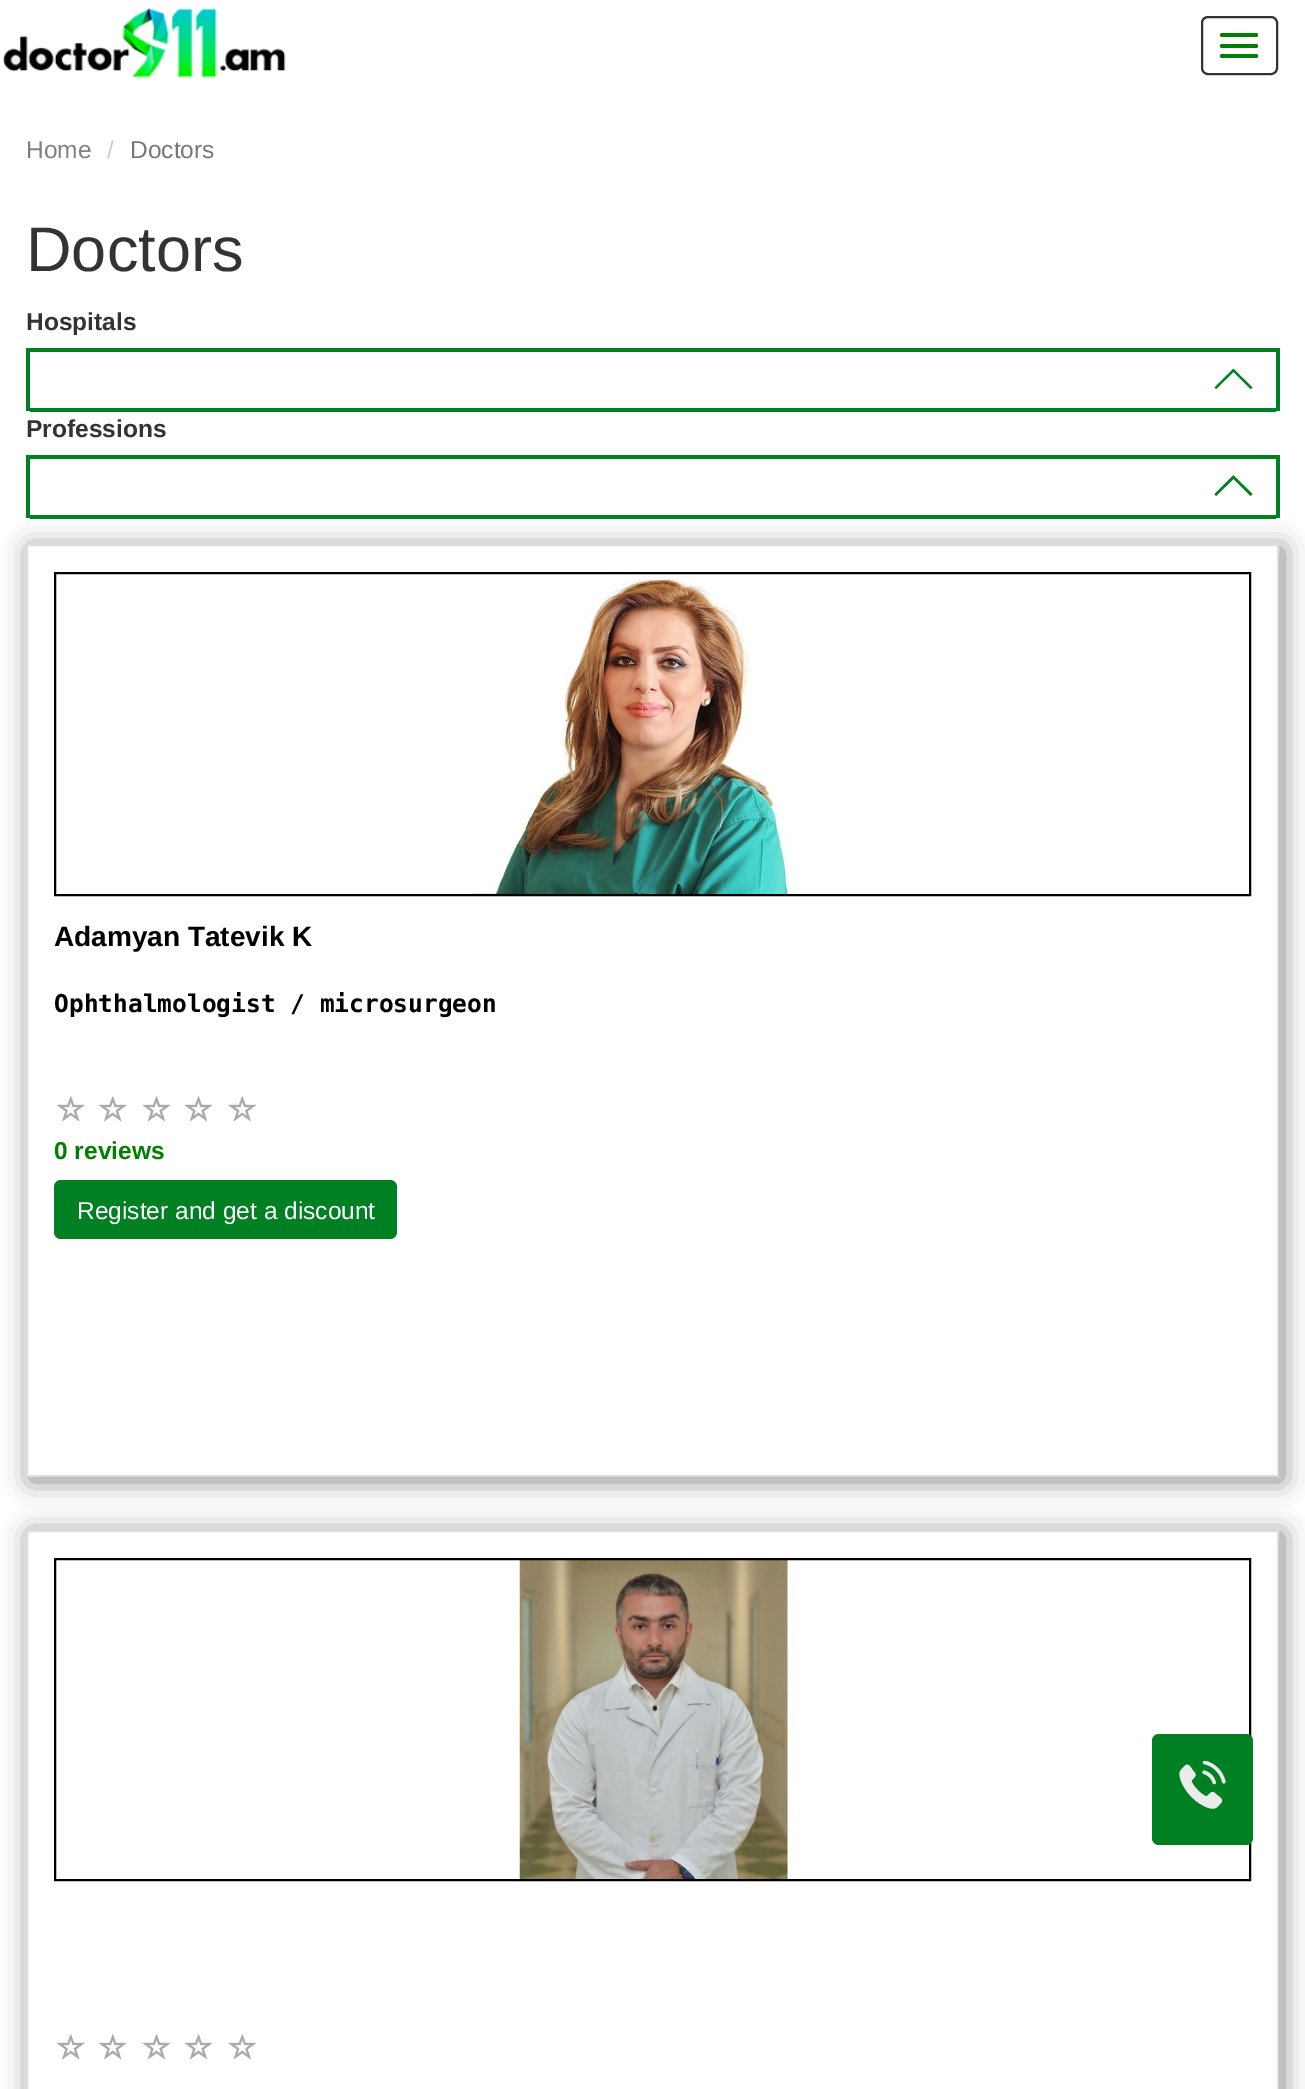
%!PS-Adobe-3.0
%%BoundingBox: 0 0 1305 2089
%%LanguageLevel: 3
%%Pages: 1
%%EndComments
%%BeginProlog
/setink { 3 { 255 div 3 1 roll } repeat setrgbcolor } def
/usefont { [ exch dup neg 0 0 3 -1 roll 0 0 ] selectfont } def
/drawtext { setink usefont moveto show } def
/fillbox { setink rectfill } def
/setalpha { dup .setfillconstantalpha .setstrokeconstantalpha } def
/rrect { 5 dict begin { /r /h /w /y /x } { exch def } forall
  x r add y moveto x w add y 2 copy h add r arct x w add y h add x 1 index r arct
  x y h add x y r arct x y 2 copy exch w add exch r arct closepath end } def
/softshadow { 12 dict begin { /a /b /q /h /w /y /x } { exch def } forall gsave /was 0 def
  9 -2 -9 { dup b mul 4 div /e exch def 1 sub .425 mul 2.718 exch exp 1 add a .99 .min exch div /now exch def
    1 1 now sub 1 was sub div sub setalpha /was now def
    w h .min e 2 mul add 0 gt { x e sub y e sub w e 2 mul add h e 2 mul add
      q e add b .6 mul add w h .min 2 div e add .min 0 .max rrect fill } if } for grestore end } def
/drawimage { 5 dict begin { /h /w /y /x /name } { exch def } forall
  gsave x y translate w h scale
  w h 8 [w 0 0 h 0 0] name (r) file false 3 colorimage grestore end } def
%%EndProlog
%%BeginSetup
<< /PageSize [1305 2089] /PageUsesTransparency true >> setpagedevice
%%EndSetup
%%Page: 1 1
0 .pushpdf14devicefilter
0 2089 translate 1 -1 scale
4 setmiterlimit
0 0 1305 2089 255 255 255 fillbox
(assets/img1.rgb) 2 7 284 71 drawimage
51 51 51 setink
2 setlinewidth
1202 17 75 57 6 rrect stroke
0 128 0 setink
1220 33 38 4 2 rrect fill
1220 44 38 4 2 rrect fill
1220 54 38 4 2 rrect fill
(Home) 26 158 /LiberationSans-Regular 24.5 128 128 128 drawtext
(/) 107 158 /LiberationSans-Regular 24.5 204 204 204 drawtext
(Doctors) 130 158 /LiberationSans-Regular 24.5 119 119 119 drawtext
(Doctors) 26 271 /LiberationSans-Regular 63 51 51 51 drawtext
(Hospitals) 26 330 /LiberationSans-Bold 24.5 51 51 51 drawtext
1276 348 4 63 0 128 34 fillbox
26 348 4 63 0 128 34 fillbox
30 348 1246 4 0 128 34 fillbox
30 408 1246 4 0 128 34 fillbox
1233 369 moveto 1235 370.5 lineto 1216 389 lineto 1214.5 387.5 lineto closepath fill
1232 370.5 moveto 1233.5 369 lineto 1252.5 387.5 lineto 1250.5 389 lineto closepath fill
(Professions) 26 437 /LiberationSans-Bold 24.5 51 51 51 drawtext
1276 455 4 63 0 128 34 fillbox
26 455 4 63 0 128 34 fillbox
30 455 1246 4 0 128 34 fillbox
30 515 1246 4 0 128 34 fillbox
1233 475.5 moveto 1235 477.5 lineto 1216 496 lineto 1214.5 494 lineto closepath fill
1232 477.5 moveto 1233.5 475.5 lineto 1252.5 494 lineto 1250.5 496 lineto closepath fill
128 128 128 setink
30 548 1253 933 0 13 1 softshadow
255 255 255 setink
27 545 moveto 1278 545 lineto 1278 1476 lineto 27 1476 lineto closepath gsave fill grestore
221 221 221 setink
stroke
(assets/img2.rgb) 471 574 319 320 drawimage
0 0 0 setink
55 573 1195 322 rectstroke
(Adamyan Tatevik K) 54 946 /LiberationSans-Bold 28 0 0 0 drawtext
(Ophthalmologist / microsurgeon) 54 1012 /DejaVuSansMono-Bold 24.5 0 0 0 drawtext
(assets/img3.rgb) 56 1096 29 26 drawimage
(assets/img3.rgb) 98 1096 29 26 drawimage
(assets/img4.rgb) 142 1096 29 26 drawimage
(assets/img4.rgb) 184 1096 29 26 drawimage
(assets/img5.rgb) 228 1096 28 26 drawimage
(0 reviews) 54 1159 /LiberationSans-Bold 24.5 0 128 0 drawtext
0 128 34 setink
54 1180 343 59 7 rrect fill
(Register and get a discount) 77 1219 /LiberationSans-Regular 24.5 255 255 255 drawtext
128 128 128 setink
30 1533 1253 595 0 13 1 softshadow
255 255 255 setink
27 1531 moveto 1278 1531 lineto 1278 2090 lineto 27 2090 lineto closepath gsave fill grestore
221 221 221 setink
stroke
(assets/img6.rgb) 519 1560 269 319 drawimage
0 0 0 setink
55 1559 1195 321 rectstroke
(assets/img3.rgb) 56 2034 29 26 drawimage
(assets/img3.rgb) 98 2034 29 26 drawimage
(assets/img4.rgb) 142 2034 29 26 drawimage
(assets/img4.rgb) 184 2034 29 26 drawimage
(assets/img5.rgb) 228 2034 28 26 drawimage
0 128 34 setink
1152 1734 101 111 7 rrect fill
(assets/img7.rgb) 1179 1761 47 48 drawimage
.poppdf14devicefilter showpage
%%EOF
